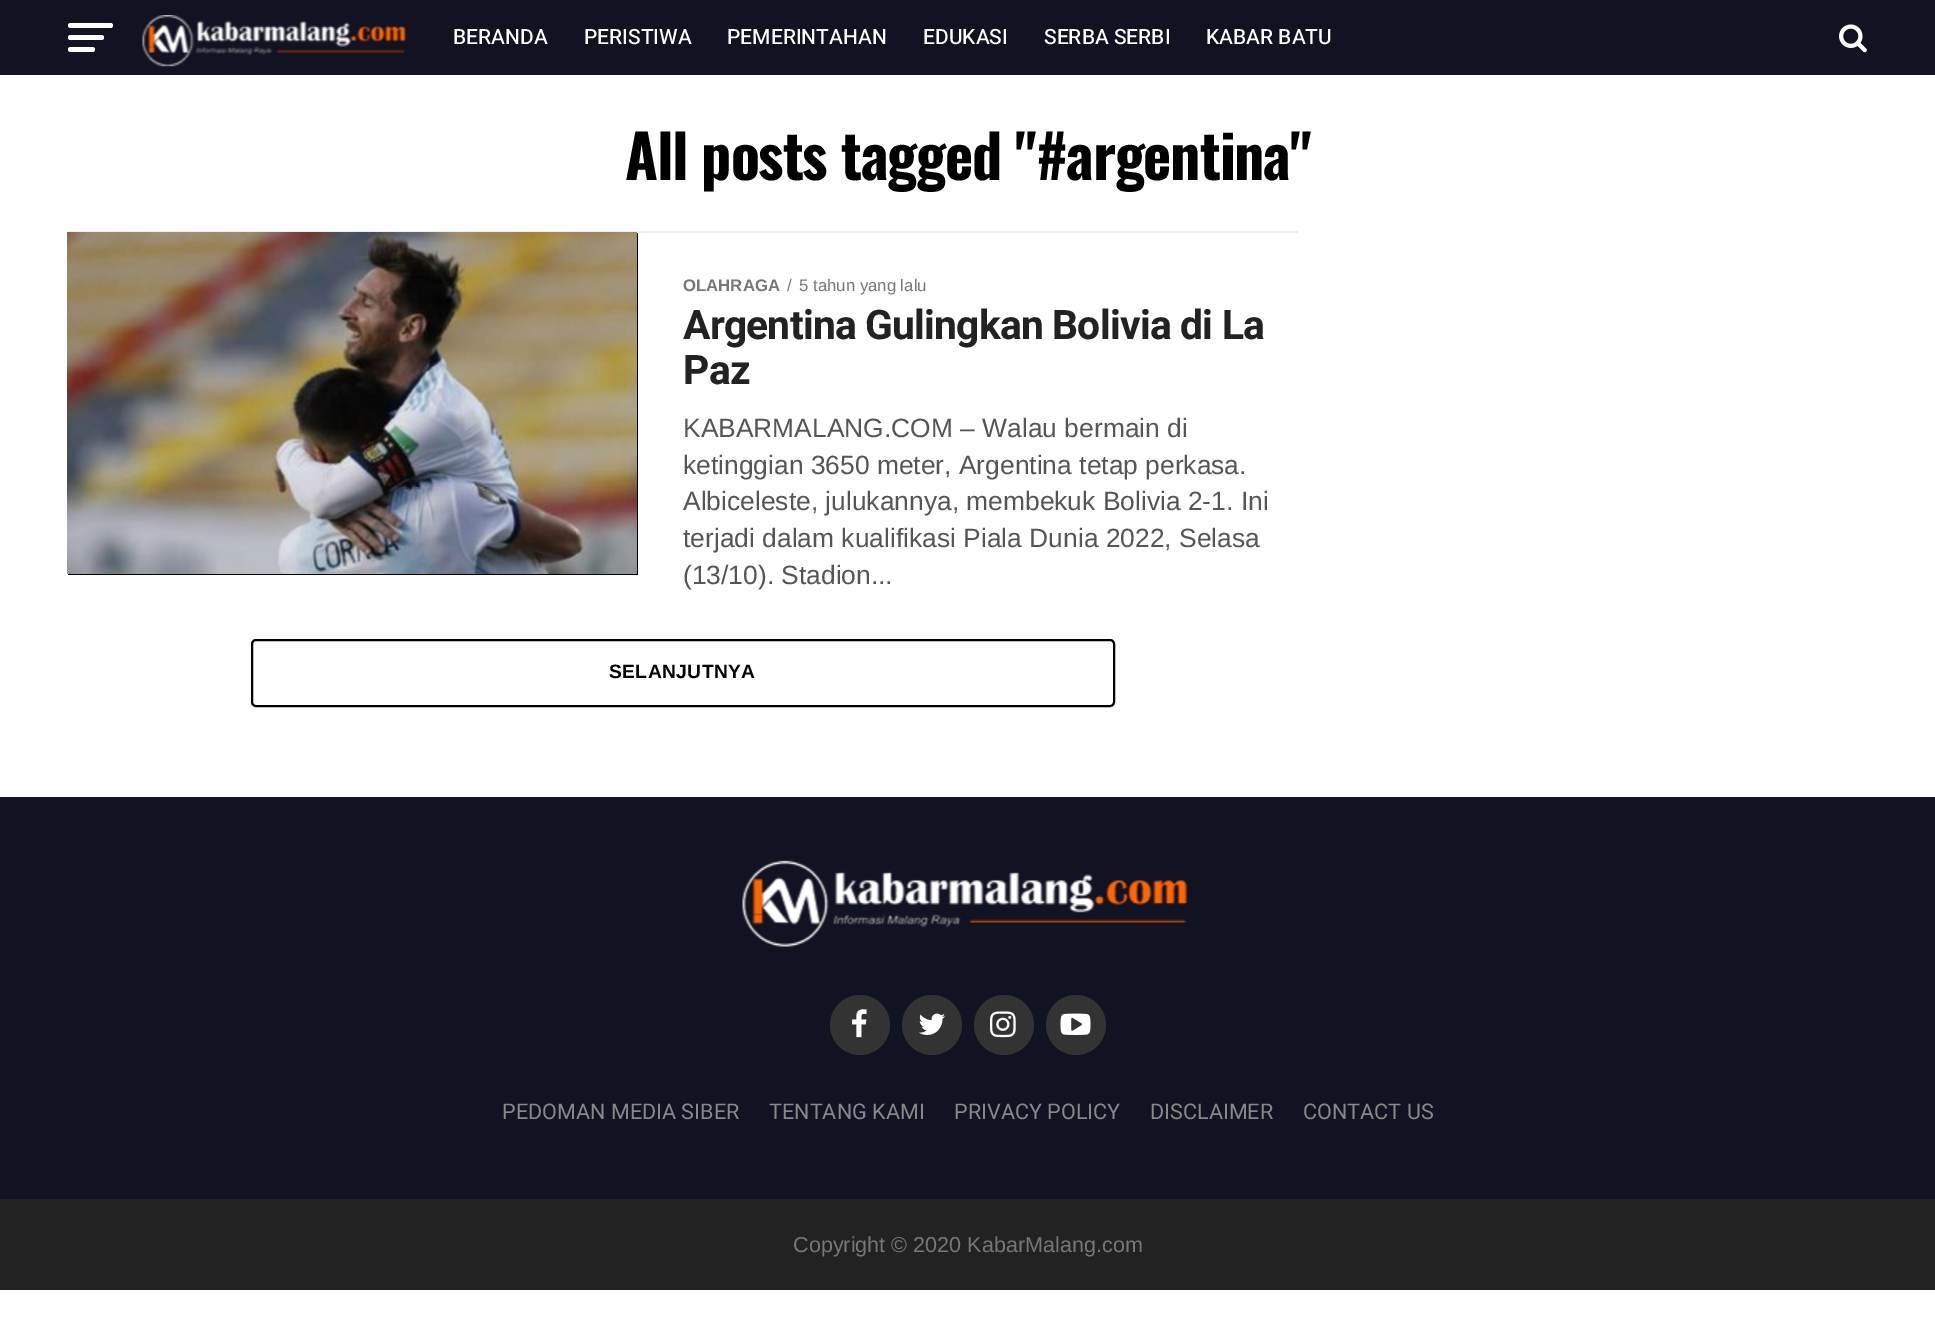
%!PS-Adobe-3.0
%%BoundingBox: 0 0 1935 1327
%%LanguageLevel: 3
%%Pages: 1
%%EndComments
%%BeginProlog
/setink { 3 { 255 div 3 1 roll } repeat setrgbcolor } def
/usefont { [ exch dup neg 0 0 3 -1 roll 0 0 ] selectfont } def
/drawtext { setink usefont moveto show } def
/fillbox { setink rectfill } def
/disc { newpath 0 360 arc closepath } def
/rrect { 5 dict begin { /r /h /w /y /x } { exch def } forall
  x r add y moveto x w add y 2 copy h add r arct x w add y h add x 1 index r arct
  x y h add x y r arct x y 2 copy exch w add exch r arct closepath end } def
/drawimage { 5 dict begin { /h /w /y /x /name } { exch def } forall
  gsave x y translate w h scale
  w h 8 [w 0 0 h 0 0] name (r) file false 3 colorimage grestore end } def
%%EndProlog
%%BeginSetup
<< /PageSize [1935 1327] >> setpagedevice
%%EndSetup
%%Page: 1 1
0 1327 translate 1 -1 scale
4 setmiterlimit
0 0 1935 1327 255 255 255 fillbox
0 0 1935 75 17 18 34 fillbox
255 255 255 setink
68 23 45 5 2.5 rrect fill
68 35 36 5 2.5 rrect fill
68 47 27 5 2.5 rrect fill
(assets/img1.rgb) 142 15 264 52 drawimage
(BERANDA) 453 44 /Heebo-Medium 21 255 255 255 drawtext
(PERISTIWA) 584 44 /Heebo-Medium 21 255 255 255 drawtext
(PEMERINTAHAN) 727 44 /Heebo-Medium 21 255 255 255 drawtext
(EDUKASI) 923 44 /Heebo-Medium 21 255 255 255 drawtext
(SERBA SERBI) 1044 44 /Heebo-Medium 21 255 255 255 drawtext
(KABAR BATU) 1206 44 /Heebo-Medium 21 255 255 255 drawtext
(assets/img2.rgb) 1839 24 28 29 drawimage
/Oswald-Bold 60 usefont
0 0 0 setink
625 180 moveto -1.2 0 (All posts tagged "#argentina") ashow
68 231 1230 2 238 238 238 fillbox
68 233 570 342 0 0 0 fillbox
(assets/img3.rgb) 67 232 570 342 drawimage
(OLAHRAGA) 683 291 /LiberationSans-Bold 16.75 119 119 119 drawtext
(/) 787 291 /LiberationSans-Regular 16.75 119 119 119 drawtext
(5 tahun yang lalu) 799 291 /LiberationSans-Regular 16.75 119 119 119 drawtext
/Heebo-Bold 40.75 usefont
34 34 34 setink
683 339 moveto -0.8 0 (Argentina Gulingkan Bolivia di La) ashow
683 384 moveto -0.8 0 (Paz) ashow
(KABARMALANG.COM – Walau bermain di) 683 437 /LiberationSans-Regular 26.4 85 85 85 drawtext
(ketinggian 3650 meter, Argentina tetap perkasa.) 683 474 /LiberationSans-Regular 26.4 85 85 85 drawtext
(Albiceleste, julukannya, membekuk Bolivia 2-1. Ini) 683 510 /LiberationSans-Regular 26.4 85 85 85 drawtext
(terjadi dalam kualifikasi Piala Dunia 2022, Selasa) 683 547 /LiberationSans-Regular 26.4 85 85 85 drawtext
(\(13/10\). Stadion...) 683 584 /LiberationSans-Regular 26.4 85 85 85 drawtext
0 0 0 setink
2 setlinewidth
252 640 862 66 4 rrect stroke
/LiberationSans-Bold 19.25 usefont
609 678 moveto 0.4 0 (SELANJUTNYA) ashow
0 797 1935 402 17 18 34 fillbox
(assets/img4.rgb) 742 860 446 87 drawimage
51 51 51 setink
860 1025 30 disc fill
(assets/img5.rgb) 852 1009 15 29 drawimage
932 1025 30 disc fill
(assets/img6.rgb) 919 1013 26 22 drawimage
1004 1025 30 disc fill
(assets/img7.rgb) 990 1011 26 27 drawimage
1076 1025 30 disc fill
(assets/img8.rgb) 1060 1013 31 22 drawimage
(PEDOMAN MEDIA SIBER) 502 1119 /Heebo-Regular 21.6 136 136 136 drawtext
(TENTANG KAMI) 769 1119 /Heebo-Regular 21.6 136 136 136 drawtext
(PRIVACY POLICY) 954 1119 /Heebo-Regular 21.6 136 136 136 drawtext
(DISCLAIMER) 1150 1119 /Heebo-Regular 21.6 136 136 136 drawtext
(CONTACT US) 1303 1119 /Heebo-Regular 21.6 136 136 136 drawtext
0 1199 1935 91 34 34 34 fillbox
(Copyright © 2020 KabarMalang.com) 793 1252 /LiberationSans-Regular 21.6 119 119 119 drawtext
showpage
%%EOF
